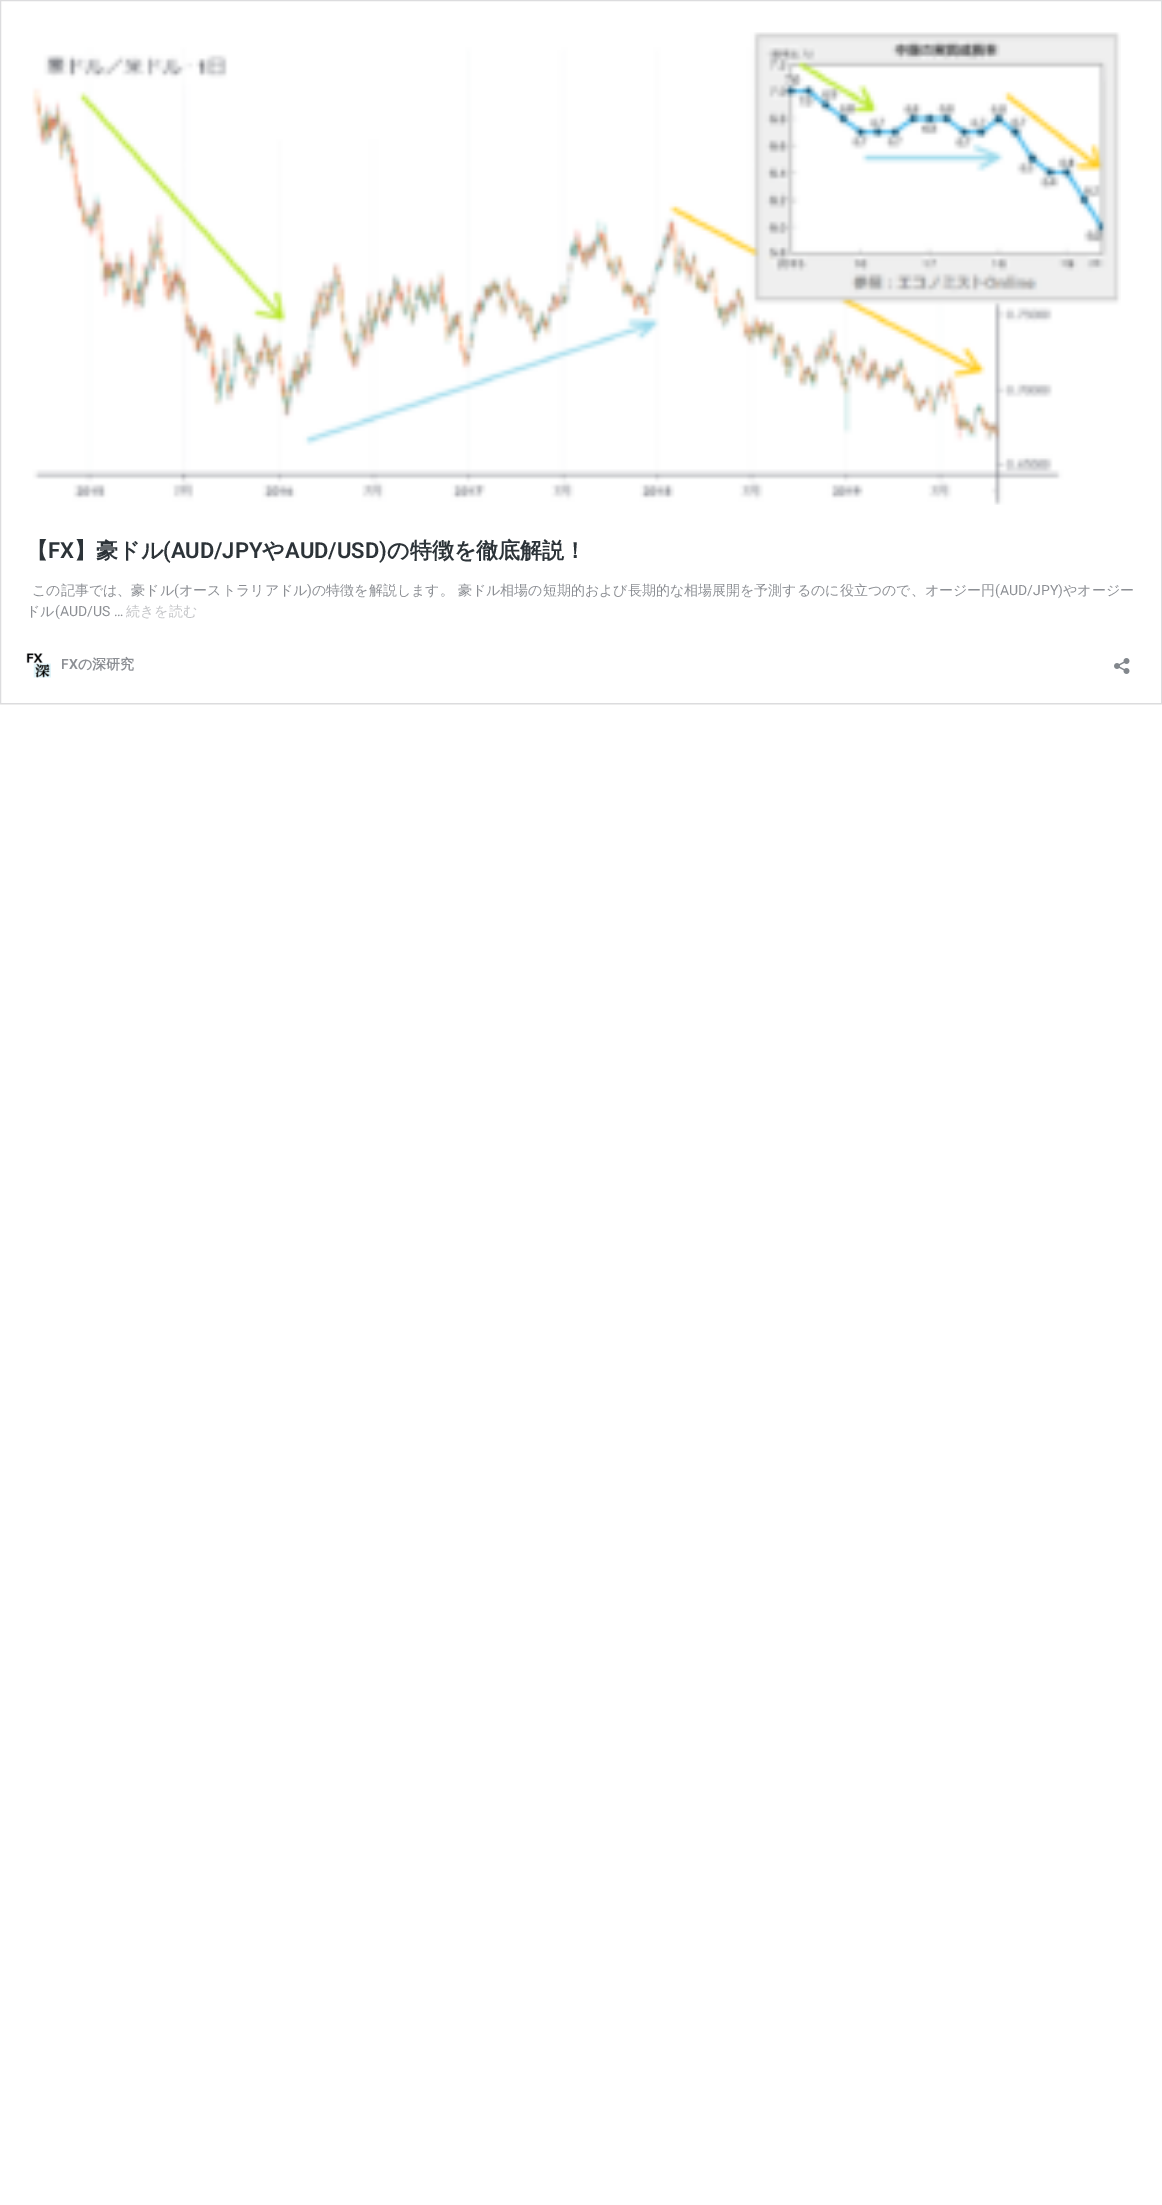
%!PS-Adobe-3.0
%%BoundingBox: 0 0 1162 2205
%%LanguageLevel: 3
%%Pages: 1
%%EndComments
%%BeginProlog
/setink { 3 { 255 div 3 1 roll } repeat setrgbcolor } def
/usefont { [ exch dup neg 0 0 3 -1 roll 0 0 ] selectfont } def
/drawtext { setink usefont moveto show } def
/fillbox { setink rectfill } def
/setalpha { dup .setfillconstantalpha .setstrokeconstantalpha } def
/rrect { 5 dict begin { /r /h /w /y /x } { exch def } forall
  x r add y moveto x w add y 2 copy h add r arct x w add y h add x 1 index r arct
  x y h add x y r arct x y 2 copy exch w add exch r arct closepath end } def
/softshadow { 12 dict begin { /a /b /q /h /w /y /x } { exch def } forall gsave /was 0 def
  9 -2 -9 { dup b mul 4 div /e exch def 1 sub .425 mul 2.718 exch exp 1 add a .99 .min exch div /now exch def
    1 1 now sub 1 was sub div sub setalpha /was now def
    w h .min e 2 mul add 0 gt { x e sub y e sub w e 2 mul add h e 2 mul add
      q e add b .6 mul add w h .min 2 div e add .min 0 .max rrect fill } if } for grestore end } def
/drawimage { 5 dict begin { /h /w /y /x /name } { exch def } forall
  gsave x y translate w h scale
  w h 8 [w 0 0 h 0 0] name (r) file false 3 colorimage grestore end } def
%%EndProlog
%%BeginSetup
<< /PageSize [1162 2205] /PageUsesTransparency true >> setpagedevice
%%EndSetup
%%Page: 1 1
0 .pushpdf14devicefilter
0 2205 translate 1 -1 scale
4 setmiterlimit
0 0 1162 2205 255 255 255 fillbox
gsave
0 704 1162 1 rectclip
0 0 0 setink
0 1 1162 704 0 0.5 0.05 softshadow
grestore
220 220 222 setink
0.5 0.5 1161 703 rectstroke
(assets/img1.rgb) 32 32 1089 473 drawimage
(【) 26 558 /WenQuanYiZenHei-Bold 22 44 51 56 drawtext
(FX) 48 558 /Roboto-SemiBold 22 44 51 56 drawtext
(】豪ドル) 74 558 /WenQuanYiZenHei-Bold 22 44 51 56 drawtext
(\(AUD/JPY) 163 558 /Roboto-SemiBold 22 44 51 56 drawtext
(や) 262 558 /WenQuanYiZenHei-Bold 22 44 51 56 drawtext
(AUD/USD\)) 285 558 /Roboto-SemiBold 22 44 51 56 drawtext
(の特徴を徹底解説！) 387 558 /WenQuanYiZenHei-Bold 22 44 51 56 drawtext
(この記事では、豪ドル) 32 595 /WenQuanYiZenHei-Medium 14 140 143 148 drawtext
(\() 174 595 /Roboto-Regular 14 140 143 148 drawtext
(オーストラリアドル) 179 595 /WenQuanYiZenHei-Medium 14 140 143 148 drawtext
(\)) 307 595 /Roboto-Regular 14 140 143 148 drawtext
(の特徴を解説します。 豪ドル相場の短期的および長期的な相場展開を予測するのに役立つので、オージー円) 312 595 /WenQuanYiZenHei-Medium 14 140 143 148 drawtext
(\(AUD/JPY\)) 995 595 /Roboto-Regular 14 140 143 148 drawtext
(やオージー) 1063 595 /WenQuanYiZenHei-Medium 14 140 143 148 drawtext
(ドル) 26 616 /WenQuanYiZenHei-Medium 14 140 143 148 drawtext
(\(AUD/US …) 55 616 /Roboto-Regular 14 140 143 148 drawtext
(続きを読む) 126 616 /WenQuanYiZenHei-Medium 14 195 196 199 drawtext
(assets/img2.rgb) 26 653 25 25 drawimage
(FX) 61 669 /Roboto-SemiBold 14 140 143 148 drawtext
(の深研究) 78 669 /WenQuanYiZenHei-Bold 14 140 143 148 drawtext
(assets/img3.rgb) 1114 658 16 16 drawimage
.poppdf14devicefilter showpage
%%EOF
